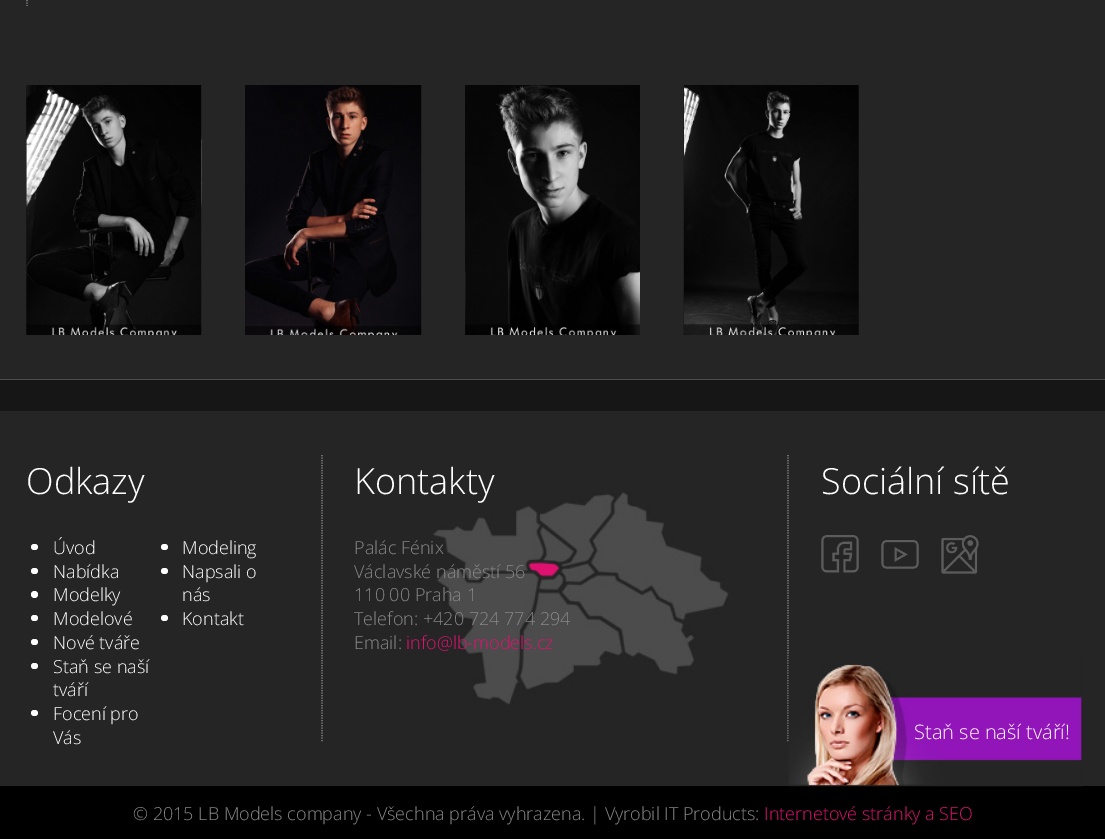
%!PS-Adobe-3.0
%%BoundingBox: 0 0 1105 839
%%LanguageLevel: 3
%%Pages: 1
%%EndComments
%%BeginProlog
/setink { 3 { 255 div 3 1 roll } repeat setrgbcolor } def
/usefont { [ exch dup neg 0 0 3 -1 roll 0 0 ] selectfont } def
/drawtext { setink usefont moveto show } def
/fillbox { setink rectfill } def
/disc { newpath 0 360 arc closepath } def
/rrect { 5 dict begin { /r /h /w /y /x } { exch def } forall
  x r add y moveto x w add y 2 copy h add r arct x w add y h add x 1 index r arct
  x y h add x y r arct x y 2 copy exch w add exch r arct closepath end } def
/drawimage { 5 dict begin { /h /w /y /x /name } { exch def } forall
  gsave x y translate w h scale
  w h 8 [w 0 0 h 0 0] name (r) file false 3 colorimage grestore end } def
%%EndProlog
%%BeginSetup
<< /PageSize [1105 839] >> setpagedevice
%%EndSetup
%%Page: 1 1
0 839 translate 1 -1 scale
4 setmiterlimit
0 0 1105 839 22 22 22 fillbox
0 0 1105 379 37 37 37 fillbox
0 379 1105 1 76 76 76 fillbox
136 136 136 setink
1.2 setlinewidth
[1.25 1.25] 0 setdash
27 -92.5 moveto 27 6 lineto stroke
(assets/img1.rgb) 26 85 176 250 drawimage
(assets/img2.rgb) 245 85 177 250 drawimage
(assets/img3.rgb) 465 85 175 250 drawimage
(assets/img4.rgb) 683 85 176 250 drawimage
0 411 1105 375 37 37 37 fillbox
136 136 136 setink
322 455 moveto 322 742.5 lineto stroke
(Odkazy) 26 494 /OpenSans-Light 36 255 255 255 drawtext
31 544 7 6 3 rrect fill
(Úvod) 53 554 /OpenSans-Light 18 255 255 255 drawtext
31 568 7 6 3 rrect fill
(Nabídka) 53 578 /OpenSans-Light 18 255 255 255 drawtext
34.5 594.5 3.5 disc fill
(Modelky) 53 601 /OpenSans-Light 18 255 255 255 drawtext
31 615 7 6 3 rrect fill
(Modelové) 53 625 /OpenSans-Light 18 255 255 255 drawtext
31 639 7 6 3 rrect fill
(Nové tváře) 53 649 /OpenSans-Light 18 255 255 255 drawtext
31 663 7 6 3 rrect fill
(Staň se naší) 53 673 /OpenSans-Light 18 255 255 255 drawtext
(tváří) 53 696 /OpenSans-Light 18 255 255 255 drawtext
31 710 7 6 3 rrect fill
(Focení pro) 53 720 /OpenSans-Light 18 255 255 255 drawtext
(Vás) 53 744 /OpenSans-Light 18 255 255 255 drawtext
161 544 7 6 3 rrect fill
(Modeling) 182 554 /OpenSans-Light 18 255 255 255 drawtext
161 568 7 6 3 rrect fill
(Napsali o) 182 578 /OpenSans-Light 18 255 255 255 drawtext
(nás) 182 601 /OpenSans-Light 18 255 255 255 drawtext
161 615 7 6 3 rrect fill
(Kontakt) 182 625 /OpenSans-Light 18 255 255 255 drawtext
(assets/img5.rgb) 433 492 296 213 drawimage
(Kontakty) 354 494 /OpenSans-Light 36 255 255 255 drawtext
(Palác Fénix) 354 554 /OpenSans-Light 18 136 136 136 drawtext
(Václavské náměstí 56) 354 578 /OpenSans-Light 18 136 136 136 drawtext
(110 00 Praha 1) 354 601 /OpenSans-Light 18 136 136 136 drawtext
(Telefon: +420 724 774 294) 354 625 /OpenSans-Light 18 136 136 136 drawtext
(Email:) 354 649 /OpenSans-Light 18 136 136 136 drawtext
(info@lb-models.cz) 406 649 /OpenSans-Light 18 222 18 112 drawtext
136 136 136 setink
788 455 moveto 788 742.5 lineto stroke
(Sociální sítě) 821 494 /OpenSans-Light 36 255 255 255 drawtext
(assets/img6.rgb) 821 535 38 38 drawimage
(assets/img7.rgb) 881 540 38 29 drawimage
(assets/img8.rgb) 941 535 38 39 drawimage
0 786 1105 53 0 0 0 fillbox
(assets/img9.rgb) 788 655 295 132 drawimage
(Staň se naší tváří!) 914 739 /OpenSans-Light 20 255 255 255 drawtext
(© 2015 LB Models company - Všechna práva vyhrazena. | Vyrobil IT Products:) 133 820 /OpenSans-Light 18 136 136 136 drawtext
(Internetové stránky a SEO) 764 820 /OpenSans-Light 18 222 18 112 drawtext
showpage
%%EOF
